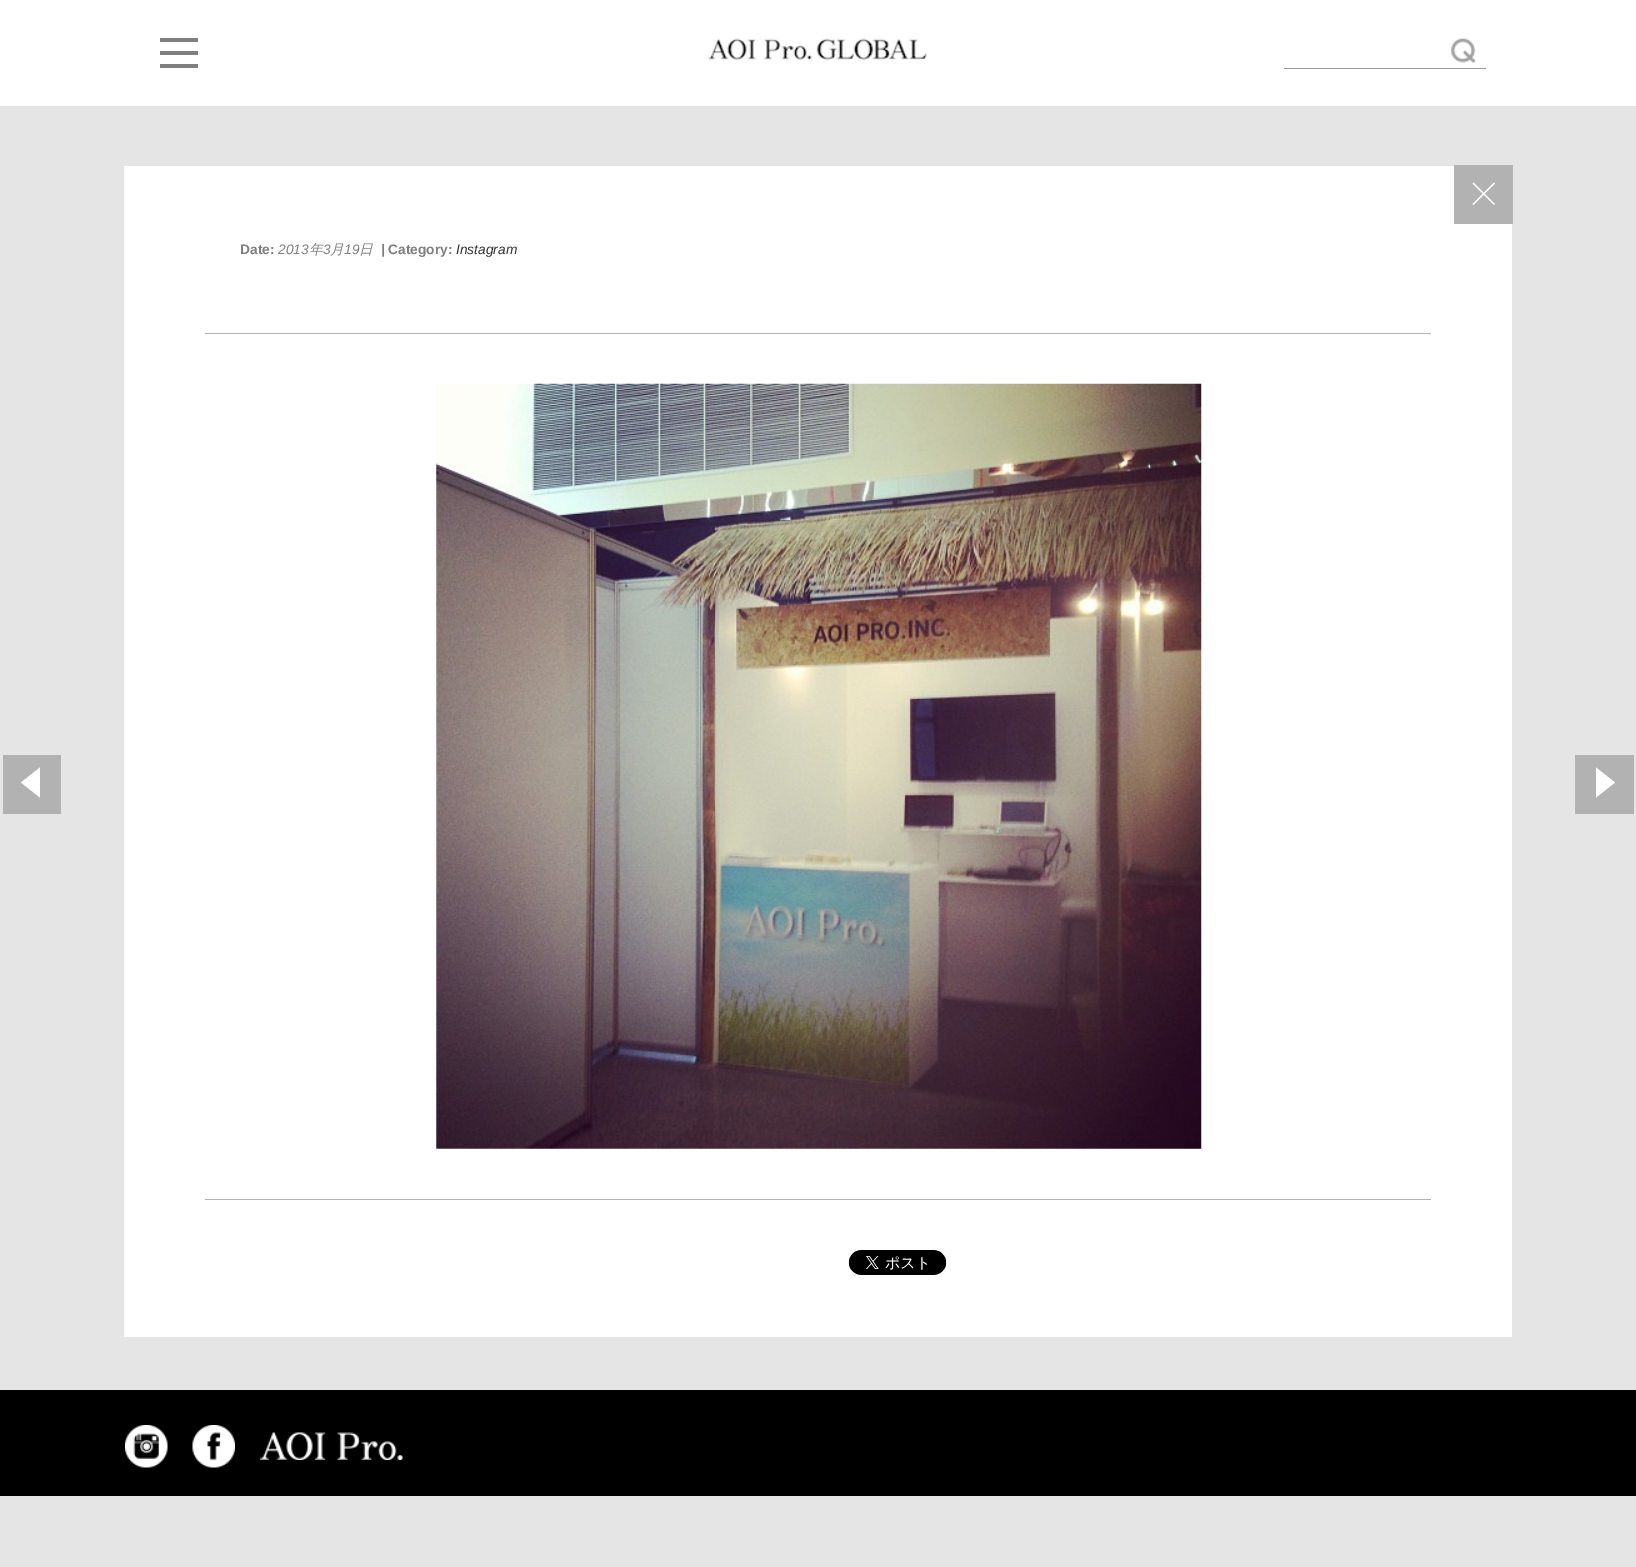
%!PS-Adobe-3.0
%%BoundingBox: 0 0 1636 1567
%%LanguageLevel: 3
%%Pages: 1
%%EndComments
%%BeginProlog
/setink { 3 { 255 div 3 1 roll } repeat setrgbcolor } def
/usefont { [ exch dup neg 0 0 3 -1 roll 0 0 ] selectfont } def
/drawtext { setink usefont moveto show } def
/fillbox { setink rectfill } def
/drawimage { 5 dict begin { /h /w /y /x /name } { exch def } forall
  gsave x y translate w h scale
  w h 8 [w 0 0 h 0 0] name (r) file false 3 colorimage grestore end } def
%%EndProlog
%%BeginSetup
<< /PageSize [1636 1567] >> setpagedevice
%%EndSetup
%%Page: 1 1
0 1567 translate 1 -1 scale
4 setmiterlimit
0 0 1636 1567 229 229 229 fillbox
0 0 1636 106 255 255 255 fillbox
160 38 38 4 127 127 127 fillbox
160 51 38 4 127 127 127 fillbox
160 64 38 4 127 127 127 fillbox
(assets/img1.rgb) 708 38 220 23 drawimage
1284 68 202 1 153 153 153 fillbox
(assets/img2.rgb) 1451 38 25 25 drawimage
124 166 1388 1171 255 255 255 fillbox
1454 165 59 59 178 178 178 fillbox
255 255 255 setink
1473.5 182.5 moveto 1495 204 lineto 1494 205 lineto 1472.5 183.5 lineto closepath fill
1495 183.5 moveto 1473.5 205 lineto 1472.5 204 lineto 1494 182.5 lineto closepath fill
3 755 58 59 178 178 178 fillbox
255 255 255 setink
40 767.5 moveto 40 797.5 lineto 21 782.5 lineto closepath fill
1575 755 59 59 178 178 178 fillbox
255 255 255 setink
1596 797.5 moveto 1596 767.5 lineto 1615 782.5 lineto closepath fill
205 333 1226 1 178 178 178 fillbox
(Date:) 240 254 /LiberationSans-Bold 13.75 127 127 127 drawtext
(2013) 278 254 /LiberationSans-Italic 13.75 127 127 127 drawtext
(年) 309 254 /WenQuanYiZenHei-MediumItalic 13.75 127 127 127 drawtext
(3) 323 254 /LiberationSans-Italic 13.75 127 127 127 drawtext
(月) 330 254 /WenQuanYiZenHei-MediumItalic 13.75 127 127 127 drawtext
(19) 344 254 /LiberationSans-Italic 13.75 127 127 127 drawtext
(日) 359 254 /WenQuanYiZenHei-MediumItalic 13.75 127 127 127 drawtext
(|) 381 254 /LiberationSans-BoldItalic 13.75 127 127 127 drawtext
(Category:) 388 254 /LiberationSans-Bold 13.75 127 127 127 drawtext
(Instagram) 456 254 /LiberationSans-Italic 13.75 51 51 51 drawtext
205 1199 1226 1 178 178 178 fillbox
(assets/img3.rgb) 436 383 766 766 drawimage
(assets/img4.rgb) 848 1250 99 25 drawimage
0 1390 1636 106 0 0 0 fillbox
(assets/img5.rgb) 125 1425 43 43 drawimage
(assets/img6.rgb) 192 1425 43 43 drawimage
(assets/img7.rgb) 260 1432 143 28 drawimage
showpage
%%EOF
